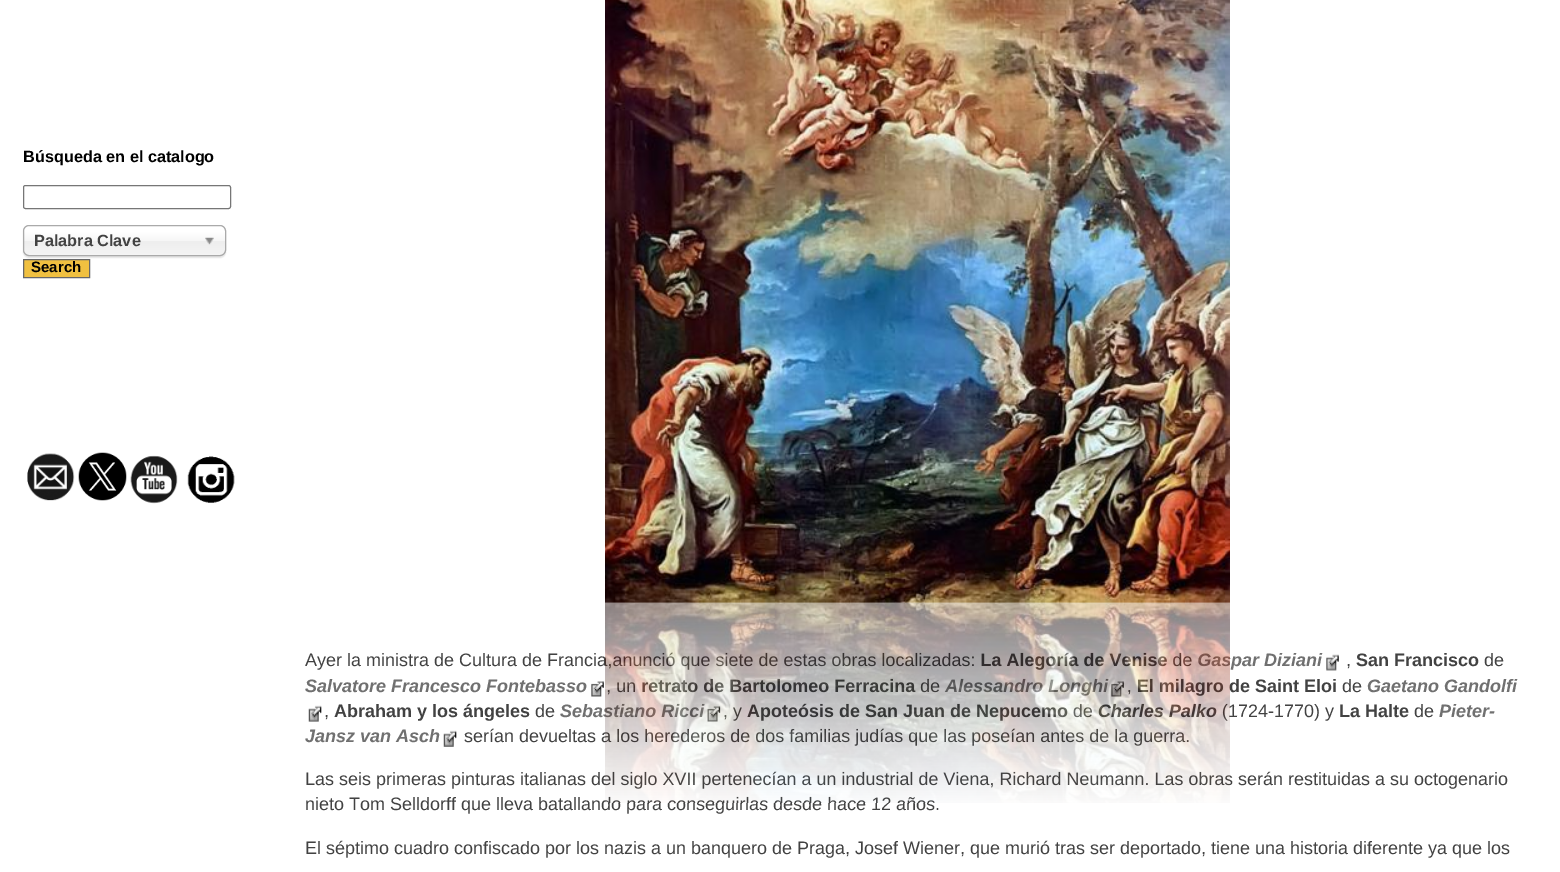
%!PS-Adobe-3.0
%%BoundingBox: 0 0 1560 872
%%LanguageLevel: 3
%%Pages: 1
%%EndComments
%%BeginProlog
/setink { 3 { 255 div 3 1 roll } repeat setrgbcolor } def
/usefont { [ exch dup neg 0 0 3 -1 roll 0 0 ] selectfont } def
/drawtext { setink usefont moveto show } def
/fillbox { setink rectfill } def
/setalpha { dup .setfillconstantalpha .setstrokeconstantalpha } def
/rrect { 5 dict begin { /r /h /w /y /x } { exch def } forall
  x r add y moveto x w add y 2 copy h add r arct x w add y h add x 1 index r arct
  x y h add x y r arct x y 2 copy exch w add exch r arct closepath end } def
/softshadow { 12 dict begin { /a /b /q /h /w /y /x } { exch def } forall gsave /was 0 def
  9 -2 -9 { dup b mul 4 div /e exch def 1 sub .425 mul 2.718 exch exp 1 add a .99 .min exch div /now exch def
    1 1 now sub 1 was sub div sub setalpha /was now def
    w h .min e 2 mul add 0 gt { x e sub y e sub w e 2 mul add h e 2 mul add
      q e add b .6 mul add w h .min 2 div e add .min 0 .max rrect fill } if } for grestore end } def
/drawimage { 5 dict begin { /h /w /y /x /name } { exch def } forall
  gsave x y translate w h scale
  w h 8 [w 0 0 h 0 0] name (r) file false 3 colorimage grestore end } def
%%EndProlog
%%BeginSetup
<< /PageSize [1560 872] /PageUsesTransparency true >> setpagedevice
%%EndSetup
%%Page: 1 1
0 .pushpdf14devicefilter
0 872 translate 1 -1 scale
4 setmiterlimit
0 0 1560 872 255 255 255 fillbox
(Búsqueda en el catalogo) 23 162 /LiberationSans-Bold 16.25 0 0 0 drawtext
118 118 118 setink
23.5 185.5 207 23 2 rrect stroke
240 192 64 setink
23.5 259.5 moveto 89.5 259.5 lineto 89.5 277.5 lineto 23.5 277.5 lineto closepath gsave fill grestore
103 103 103 setink
stroke
0 0 0 setink
23 226 203 32 6 0.5 0.1 softshadow
gsave 24 226 201 29 5 rrect clip newpath
<< /ShadingType 2 /ColorSpace /DeviceRGB /Coords [124 226 124 255] /Extend [true true] /Function << /FunctionType 3 /Domain [0 1] /Functions [<< /FunctionType 2 /Domain [0 1] /C0 [1 1 1] /C1 [1 1 1] /N 1 >> << /FunctionType 2 /Domain [0 1] /C0 [1 1 1] /C1 [0.965 0.965 0.965] /N 1 >> << /FunctionType 2 /Domain [0 1] /C0 [0.965 0.965 0.965] /C1 [0.933 0.933 0.933] /N 1 >> << /FunctionType 2 /Domain [0 1] /C0 [0.933 0.933 0.933] /C1 [0.957 0.957 0.957] /N 1 >>] /Bounds [0.2 0.5 0.52] /Encode [0 1 0 1 0 1 0 1] >> >> shfill grestore
170 170 170 setink
23.5 225.5 202 30 5.5 rrect stroke
(Palabra Clave) 34 246 /LiberationSans-Bold 16.25 66 66 66 drawtext
(assets/img1.rgb) 205 237 9 8 drawimage
(Search) 31 272 /LiberationSans-Bold 15 0 0 0 drawtext
(assets/img2.rgb) 27 453 48 48 drawimage
(assets/img3.rgb) 78 452 49 49 drawimage
(assets/img4.rgb) 130 455 48 49 drawimage
(assets/img5.rgb) 187 456 48 47 drawimage
(assets/img6.rgb) 605 0 625 603 drawimage
(Ayer la ministra de Cultura de Francia,anunció que siete de estas obras localizadas:) 305 666 /LiberationSans-Regular 18 66 66 66 drawtext
(La Alegoría de Venise) 980 666 /LiberationSans-Bold 18 66 66 66 drawtext
(de) 1172 666 /LiberationSans-Regular 18 66 66 66 drawtext
(Gaspar Diziani) 1197 666 /LiberationSans-BoldItalic 18 112 112 112 drawtext
(, un) 606 692 /LiberationSans-Regular 18 66 66 66 drawtext
(retrato de Bartolomeo Ferracina) 641 692 /LiberationSans-Bold 18 66 66 66 drawtext
(de) 920 692 /LiberationSans-Regular 18 66 66 66 drawtext
(Alessandro Longhi) 945 692 /LiberationSans-BoldItalic 18 112 112 112 drawtext
(assets/img9.rgb) 1111 681 13 16 drawimage
(,) 1127 692 /LiberationSans-Regular 18 66 66 66 drawtext
(El milagro de Saint Eloi) 1137 692 /LiberationSans-Bold 18 66 66 66 drawtext
(Sebastiano Ricci) 560 717 /LiberationSans-BoldItalic 18 112 112 112 drawtext
(assets/img11.rgb) 707 706 14 16 drawimage
(, y) 723 717 /LiberationSans-Regular 18 66 66 66 drawtext
(Apoteósis de San Juan de Nepucemo) 747 717 /LiberationSans-Bold 18 66 66 66 drawtext
(de) 1073 717 /LiberationSans-Regular 18 66 66 66 drawtext
(Charles Palko) 1098 717 /LiberationSans-BoldItalic 18 66 66 66 drawtext
(\(1724-1770\) y) 1222 717 /LiberationSans-Regular 18 66 66 66 drawtext
(serían devueltas a los herederos de dos familias judías que las poseían antes de la guerra.) 464 742 /LiberationSans-Regular 18 66 66 66 drawtext
(Las seis primeras pinturas italianas del siglo XVII pertenecían a un industrial de Viena, Richard Neumann. Las obras serán restituidas a su octogenario) 305 785 /LiberationSans-Regular 18 66 66 66 drawtext
(nieto Tom Selldorff que lleva batallando para conseguirlas desde hace 12 años.) 305 810 /LiberationSans-Regular 18 66 66 66 drawtext
(assets/img7.rgb) 605 602 625 201 drawimage
(assets/img8.rgb) 1326 654 13 17 drawimage
(,) 1346 666 /LiberationSans-Regular 18 66 66 66 drawtext
(San Francisco) 1356 666 /LiberationSans-Bold 18 66 66 66 drawtext
(de) 1484 666 /LiberationSans-Regular 18 66 66 66 drawtext
(Salvatore Francesco Fontebasso) 305 692 /LiberationSans-BoldItalic 18 112 112 112 drawtext
(assets/img9.rgb) 591 681 13 16 drawimage
(de) 1342 692 /LiberationSans-Regular 18 66 66 66 drawtext
(Gaetano Gandolfi) 1367 692 /LiberationSans-BoldItalic 18 112 112 112 drawtext
(assets/img10.rgb) 308 705 14 17 drawimage
(,) 324 717 /LiberationSans-Regular 18 66 66 66 drawtext
(Abraham y los ángeles) 334 717 /LiberationSans-Bold 18 66 66 66 drawtext
(de) 535 717 /LiberationSans-Regular 18 66 66 66 drawtext
(La Halte) 1339 717 /LiberationSans-Bold 18 66 66 66 drawtext
(de) 1414 717 /LiberationSans-Regular 18 66 66 66 drawtext
(Pieter-) 1439 717 /LiberationSans-BoldItalic 18 112 112 112 drawtext
(Jansz van Asch) 305 742 /LiberationSans-BoldItalic 18 112 112 112 drawtext
(assets/img12.rgb) 443 730 14 17 drawimage
(El séptimo cuadro confiscado por los nazis a un banquero de Praga, Josef Wiener, que murió tras ser deportado, tiene una historia diferente ya que los) 305 854 /LiberationSans-Regular 18 66 66 66 drawtext
.poppdf14devicefilter showpage
%%EOF
